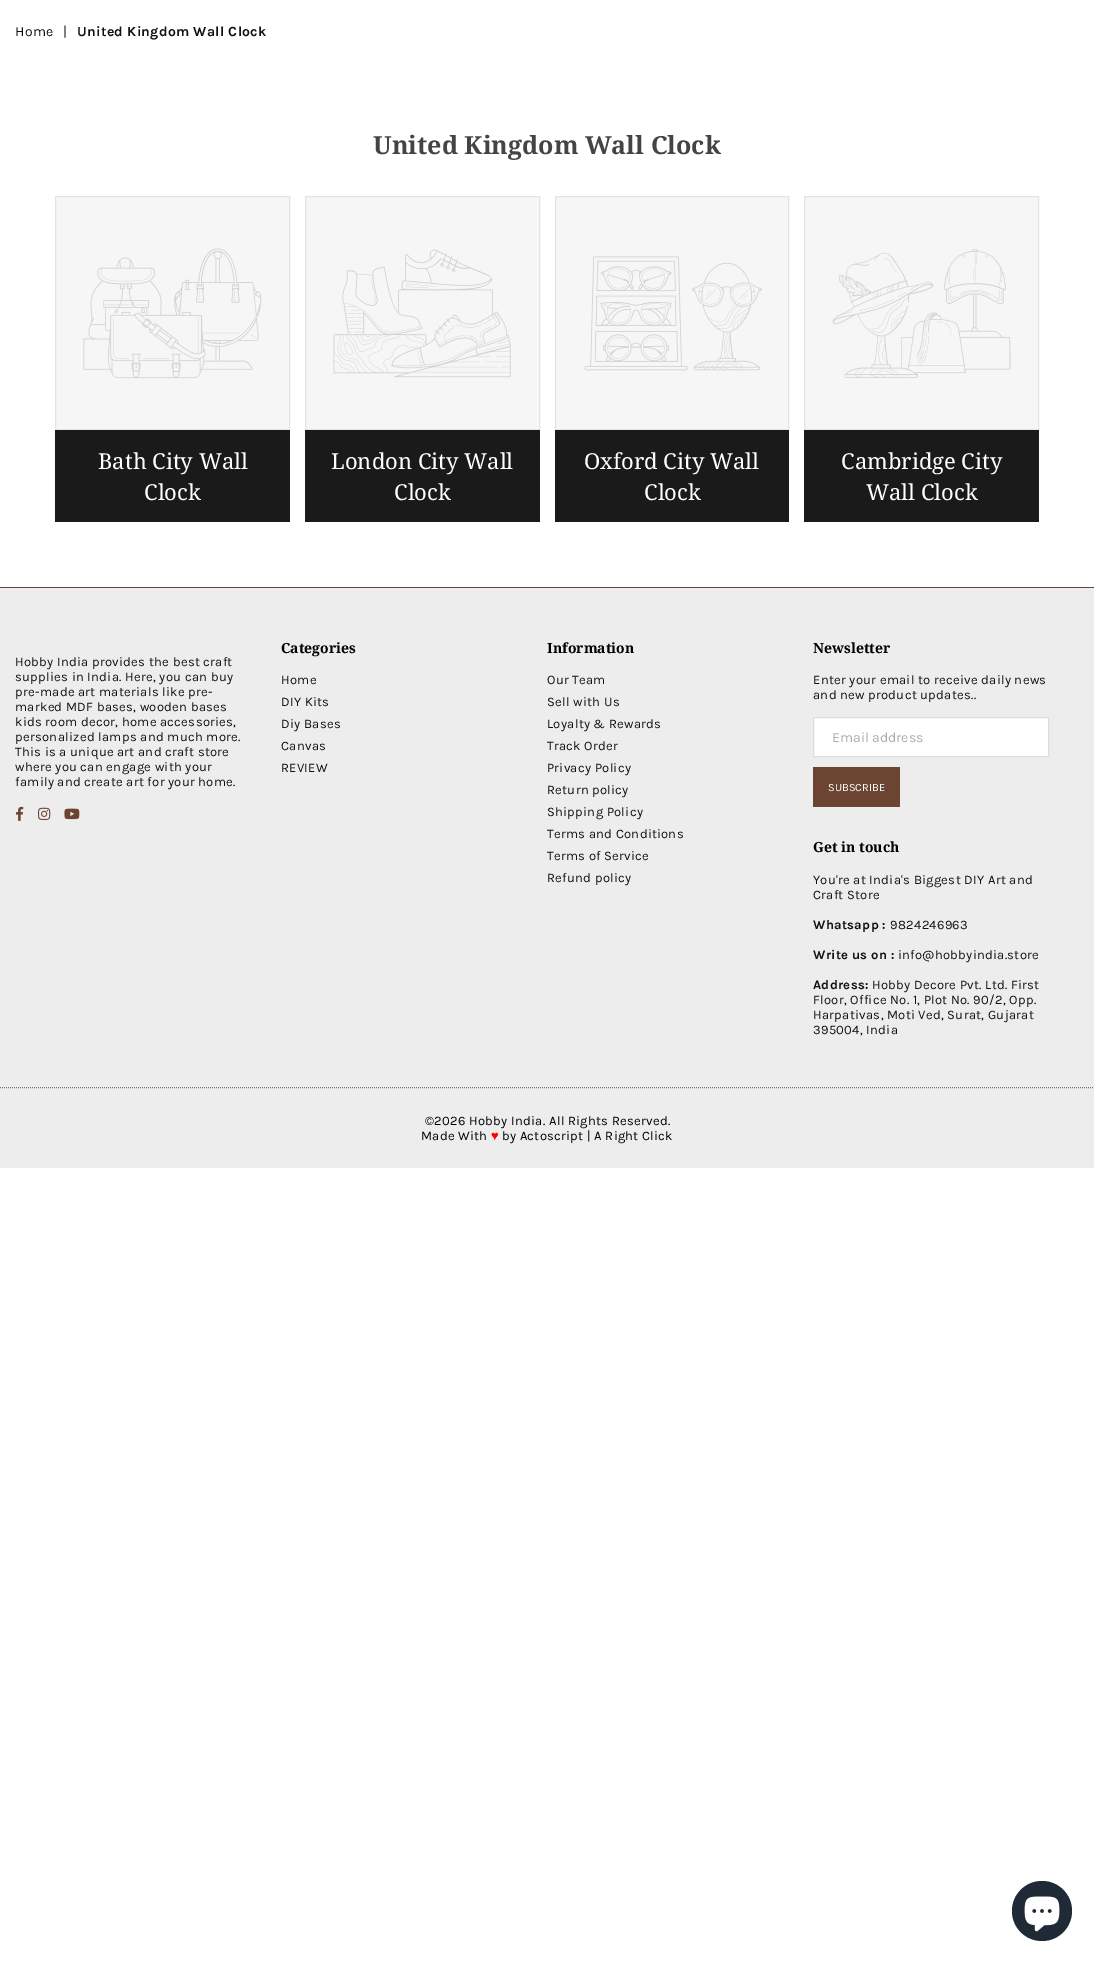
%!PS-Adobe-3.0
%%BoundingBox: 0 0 1094 1962
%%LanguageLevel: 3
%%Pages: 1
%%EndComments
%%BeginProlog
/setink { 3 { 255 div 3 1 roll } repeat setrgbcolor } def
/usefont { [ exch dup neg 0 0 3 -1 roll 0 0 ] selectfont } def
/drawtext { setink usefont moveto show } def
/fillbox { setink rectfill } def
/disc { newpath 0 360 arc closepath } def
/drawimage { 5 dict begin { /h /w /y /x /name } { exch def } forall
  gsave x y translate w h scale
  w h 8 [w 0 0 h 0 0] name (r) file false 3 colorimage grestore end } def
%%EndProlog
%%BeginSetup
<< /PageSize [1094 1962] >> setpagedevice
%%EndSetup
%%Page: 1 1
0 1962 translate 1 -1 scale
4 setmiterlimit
0 0 1094 1962 255 255 255 fillbox
/Karla-Regular 14 usefont
17 17 17 setink
15 36 moveto 0.3 0 (Home) ashow
63 36 moveto 0.3 0 (|) ashow
/Karla-Bold 14 usefont
77 36 moveto 0.3 0 (United Kingdom Wall Clock) ashow
(United Kingdom Wall Clock) 373 154 /NotoSerif-Bold 25 68 68 68 drawtext
246 246 246 setink
55.5 196.5 moveto 289.5 196.5 lineto 289.5 429.5 lineto 55.5 429.5 lineto closepath gsave fill grestore
228 228 228 setink
stroke
(assets/img1.rgb) 83 248 179 131 drawimage
55 430 235 92 26 26 26 fillbox
(Bath City Wall) 98 469 /NotoSerif-Regular 22 255 255 255 drawtext
(Clock) 144 500 /NotoSerif-Regular 22 255 255 255 drawtext
246 246 246 setink
305.5 196.5 moveto 539.5 196.5 lineto 539.5 429.5 lineto 305.5 429.5 lineto closepath gsave fill grestore
228 228 228 setink
stroke
(assets/img2.rgb) 333 249 179 129 drawimage
305 430 235 92 26 26 26 fillbox
(London City Wall) 331 469 /NotoSerif-Regular 22 255 255 255 drawtext
(Clock) 394 500 /NotoSerif-Regular 22 255 255 255 drawtext
246 246 246 setink
555.5 196.5 moveto 788.5 196.5 lineto 788.5 429.5 lineto 555.5 429.5 lineto closepath gsave fill grestore
228 228 228 setink
stroke
(assets/img3.rgb) 584 256 179 115 drawimage
555 430 234 92 26 26 26 fillbox
(Oxford City Wall) 584 469 /NotoSerif-Regular 22 255 255 255 drawtext
(Clock) 644 500 /NotoSerif-Regular 22 255 255 255 drawtext
246 246 246 setink
804.5 196.5 moveto 1038.5 196.5 lineto 1038.5 429.5 lineto 804.5 429.5 lineto closepath gsave fill grestore
228 228 228 setink
stroke
(assets/img4.rgb) 832 249 179 129 drawimage
804 430 235 92 26 26 26 fillbox
(Cambridge City) 841 469 /NotoSerif-Regular 22 255 255 255 drawtext
(Wall Clock) 866 500 /NotoSerif-Regular 22 255 255 255 drawtext
0 588 1094 580 237 237 237 fillbox
0 587 1094 1 108 69 50 fillbox
/Karla-Regular 13 usefont
17 17 17 setink
15 666 moveto 0.3 0 (Hobby India provides the best craft) ashow
15 681 moveto 0.3 0 (supplies in India. Here, you can buy) ashow
15 696 moveto 0.3 0 (pre-made art materials like pre-) ashow
15 711 moveto 0.3 0 (marked MDF bases, wooden bases) ashow
15 726 moveto 0.3 0 (kids room decor, home accessories,) ashow
15 741 moveto 0.3 0 (personalized lamps and much more.) ashow
15 756 moveto 0.3 0 (This is a unique art and craft store) ashow
15 771 moveto 0.3 0 (where you can engage with your) ashow
15 786 moveto 0.3 0 (family and create art for your home.) ashow
(assets/img5.rgb) 16 806 8 15 drawimage
(assets/img6.rgb) 38 807 13 13 drawimage
(assets/img7.rgb) 64 808 16 12 drawimage
(Categories) 281 653 /NotoSerif-Bold 14 0 0 0 drawtext
/Karla-Regular 13 usefont
17 17 17 setink
281 684 moveto 0.3 0 (Home) ashow
281 706 moveto 0.3 0 (DIY Kits) ashow
281 728 moveto 0.3 0 (Diy Bases) ashow
281 750 moveto 0.3 0 (Canvas) ashow
281 772 moveto 0.3 0 (REVIEW) ashow
(Information) 547 653 /NotoSerif-Bold 14 0 0 0 drawtext
/Karla-Regular 13 usefont
17 17 17 setink
547 684 moveto 0.3 0 (Our Team) ashow
547 706 moveto 0.3 0 (Sell with Us) ashow
547 728 moveto 0.3 0 (Loyalty & Rewards) ashow
547 750 moveto 0.3 0 (Track Order) ashow
547 772 moveto 0.3 0 (Privacy Policy) ashow
547 794 moveto 0.3 0 (Return policy) ashow
547 816 moveto 0.3 0 (Shipping Policy) ashow
547 838 moveto 0.3 0 (Terms and Conditions) ashow
547 860 moveto 0.3 0 (Terms of Service) ashow
547 882 moveto 0.3 0 (Refund policy) ashow
(Newsletter) 813 653 /NotoSerif-Bold 14 0 0 0 drawtext
/Karla-Regular 13 usefont
17 17 17 setink
813 684 moveto 0.3 0 (Enter your email to receive daily news) ashow
813 699 moveto 0.3 0 (and new product updates..) ashow
255 255 255 setink
813.5 717.5 moveto 1048.5 717.5 lineto 1048.5 756.5 lineto 813.5 756.5 lineto closepath gsave fill grestore
221 221 221 setink
stroke
(Email address) 832 742 /Karla-Regular 14 172 172 172 drawtext
813 767 87 40 108 69 50 fillbox
(SUBSCRIBE) 828 791 /Karla-Regular 11 255 255 255 drawtext
(Get in touch) 813 852 /NotoSerif-Bold 14 0 0 0 drawtext
/Karla-Regular 13 usefont
17 17 17 setink
813 884 moveto 0.3 0 (You're at India's Biggest DIY Art and) ashow
813 899 moveto 0.3 0 (Craft Store) ashow
/Karla-Bold 13 usefont
813 929 moveto 0.3 0 (Whatsapp :) ashow
/Karla-Regular 13 usefont
890 929 moveto 0.3 0 (9824246963) ashow
/Karla-Bold 13 usefont
813 959 moveto 0.3 0 (Write us on :) ashow
/Karla-Regular 13 usefont
898 959 moveto 0.3 0 (info@hobbyindia.store) ashow
/Karla-Bold 13 usefont
813 989 moveto 0.3 0 (Address:) ashow
/Karla-Regular 13 usefont
872 989 moveto 0.3 0 (Hobby Decore Pvt. Ltd. First) ashow
813 1004 moveto 0.3 0 (Floor, Office No. 1, Plot No. 90/2, Opp.) ashow
813 1019 moveto 0.3 0 (Harpativas, Moti Ved, Surat, Gujarat) ashow
813 1034 moveto 0.3 0 (395004, India) ashow
103 126 82 setink
[1 1] 0 setdash
0 1087.5 moveto 1094 1087.5 lineto stroke
0 0 0 setink
425 1125 moveto 0.3 0 (©2026 Hobby India. All Rights Reserved.) ashow
421 1140 moveto 0.3 0 (Made With) ashow
/LiberationSans-Regular 13 usefont
255 0 0 setink
491 1140 moveto 0.3 0 (♥) ashow
/Karla-Regular 13 usefont
0 0 0 setink
502 1140 moveto 0.3 0 (by Actoscript | A Right Click) ashow
32 42 54 setink
1042 1911 30 disc fill
(assets/img8.rgb) 1024 1896 36 36 drawimage
showpage
%%EOF
